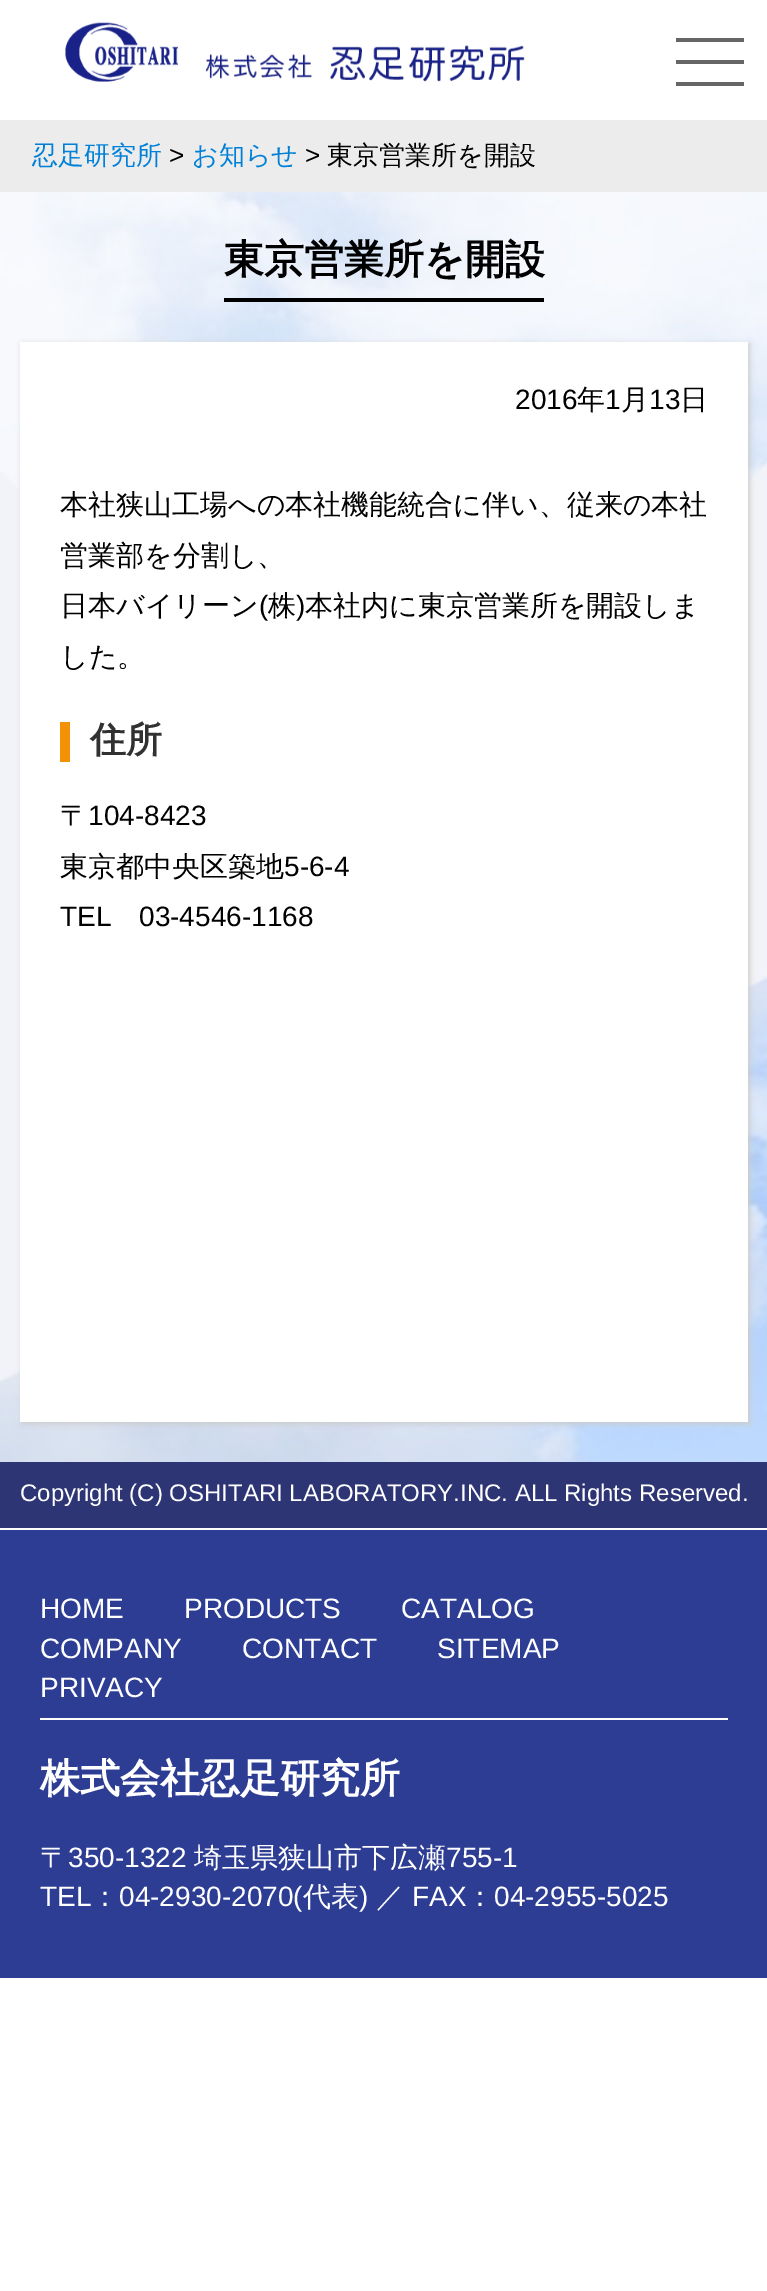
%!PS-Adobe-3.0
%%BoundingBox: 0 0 767 2291
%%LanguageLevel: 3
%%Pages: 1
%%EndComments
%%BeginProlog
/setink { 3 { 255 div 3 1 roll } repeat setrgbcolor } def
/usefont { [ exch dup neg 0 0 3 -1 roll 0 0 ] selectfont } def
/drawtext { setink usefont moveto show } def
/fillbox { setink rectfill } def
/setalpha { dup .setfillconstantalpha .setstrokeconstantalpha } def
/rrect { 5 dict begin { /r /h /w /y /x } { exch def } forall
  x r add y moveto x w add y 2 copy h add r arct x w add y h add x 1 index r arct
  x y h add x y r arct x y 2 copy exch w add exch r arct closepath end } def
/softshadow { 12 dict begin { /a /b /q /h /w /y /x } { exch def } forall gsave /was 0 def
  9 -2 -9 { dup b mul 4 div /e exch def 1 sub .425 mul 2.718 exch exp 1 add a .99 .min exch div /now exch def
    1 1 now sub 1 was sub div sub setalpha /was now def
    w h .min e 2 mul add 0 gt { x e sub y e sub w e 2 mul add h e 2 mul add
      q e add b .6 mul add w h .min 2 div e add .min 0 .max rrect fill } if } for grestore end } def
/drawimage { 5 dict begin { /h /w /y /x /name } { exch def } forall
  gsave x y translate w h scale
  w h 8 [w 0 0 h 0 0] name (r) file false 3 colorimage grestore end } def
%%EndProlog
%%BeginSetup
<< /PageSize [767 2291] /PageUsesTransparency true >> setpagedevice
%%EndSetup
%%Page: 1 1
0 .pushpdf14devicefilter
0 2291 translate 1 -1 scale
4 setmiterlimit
0 0 767 2291 255 255 255 fillbox
(assets/img1.rgb) 65 22 460 60 drawimage
676 38 68 4 102 102 102 fillbox
676 60 68 4 102 102 102 fillbox
676 82 68 4 102 102 102 fillbox
(assets/img2.rgb) 0 192 767 1270 drawimage
0 120 767 72 236 236 236 fillbox
(忍足研究所) 32 164 /WenQuanYiZenHei-Medium 26 0 129 215 drawtext
(>) 169 164 /LiberationSans-Regular 26 0 0 0 drawtext
(お知らせ) 192 164 /WenQuanYiZenHei-Medium 26 0 129 215 drawtext
(>) 305 164 /LiberationSans-Regular 26 0 0 0 drawtext
(東京営業所を開設) 327 164 /WenQuanYiZenHei-Medium 26 0 0 0 drawtext
224 298 320 4 0 0 0 fillbox
(東京営業所を開設) 224 273 /WenQuanYiZenHei-Bold 40 0 0 0 drawtext
204 204 204 setink
22 344 728 1080 0 3 1 softshadow
20 342 728 1080 255 255 255 fillbox
(2016) 515 409 /LiberationSans-Regular 28 0 0 0 drawtext
(年) 577 409 /WenQuanYiZenHei-Medium 28 0 0 0 drawtext
(1) 605 409 /LiberationSans-Regular 28 0 0 0 drawtext
(月) 621 409 /WenQuanYiZenHei-Medium 28 0 0 0 drawtext
(13) 649 409 /LiberationSans-Regular 28 0 0 0 drawtext
(日) 680 409 /WenQuanYiZenHei-Medium 28 0 0 0 drawtext
(本社狭山工場への本社機能統合に伴い、従来の本社) 60 514 /WenQuanYiZenHei-Medium 28 0 0 0 drawtext
(営業部を分割し、) 60 565 /WenQuanYiZenHei-Medium 28 0 0 0 drawtext
(日本バイリーン) 60 615 /WenQuanYiZenHei-Medium 28 0 0 0 drawtext
(\() 259 615 /LiberationSans-Regular 28 0 0 0 drawtext
(株) 268 615 /WenQuanYiZenHei-Medium 28 0 0 0 drawtext
(\)) 296 615 /LiberationSans-Regular 28 0 0 0 drawtext
(本社内に東京営業所を開設しま) 305 615 /WenQuanYiZenHei-Medium 28 0 0 0 drawtext
(した。) 60 666 /WenQuanYiZenHei-Medium 28 0 0 0 drawtext
60 722 10 40 243 146 7 fillbox
(住所) 90 752 /WenQuanYiZenHei-Bold 36 49 49 49 drawtext
(〒) 60 825 /WenQuanYiZenHei-Medium 28 0 0 0 drawtext
(104-8423) 88 825 /LiberationSans-Regular 28 0 0 0 drawtext
(東京都中央区築地) 60 876 /WenQuanYiZenHei-Medium 28 0 0 0 drawtext
(5-6-4) 284 876 /LiberationSans-Regular 28 0 0 0 drawtext
(TEL) 60 926 /LiberationSans-Regular 28 0 0 0 drawtext
(03-4546-1168) 139 926 /LiberationSans-Regular 28 0 0 0 drawtext
0 1530 767 448 46 61 148 fillbox
0 1462 767 66 45 53 117 fillbox
(Copyright \(C\) OSHITARI LABORATORY.INC. ALL Rights Reserved.) 20 1501 /LiberationSans-Regular 24 255 255 255 drawtext
40 1718 688 2 255 255 255 fillbox
(HOME) 40 1618 /LiberationSans-Regular 28 255 255 255 drawtext
(PRODUCTS) 184 1618 /LiberationSans-Regular 28 255 255 255 drawtext
(CATALOG) 401 1618 /LiberationSans-Regular 28 255 255 255 drawtext
(COMPANY) 40 1658 /LiberationSans-Regular 28 255 255 255 drawtext
(CONTACT) 242 1658 /LiberationSans-Regular 28 255 255 255 drawtext
(SITEMAP) 437 1658 /LiberationSans-Regular 28 255 255 255 drawtext
(PRIVACY) 40 1697 /LiberationSans-Regular 28 255 255 255 drawtext
(株式会社忍足研究所) 40 1792 /WenQuanYiZenHei-Bold 40 255 255 255 drawtext
(〒) 40 1867 /WenQuanYiZenHei-Medium 28 255 255 255 drawtext
(350-1322) 68 1867 /LiberationSans-Regular 28 255 255 255 drawtext
(埼玉県狭山市下広瀬) 194 1867 /WenQuanYiZenHei-Medium 28 255 255 255 drawtext
(755-1) 446 1867 /LiberationSans-Regular 28 255 255 255 drawtext
(TEL) 40 1906 /LiberationSans-Regular 28 255 255 255 drawtext
(：) 91 1906 /WenQuanYiZenHei-Medium 28 255 255 255 drawtext
(04-2930-2070\() 119 1906 /LiberationSans-Regular 28 255 255 255 drawtext
(代表) 303 1906 /WenQuanYiZenHei-Medium 28 255 255 255 drawtext
(\)) 359 1906 /LiberationSans-Regular 28 255 255 255 drawtext
(／) 376 1906 /WenQuanYiZenHei-Medium 28 255 255 255 drawtext
(FAX) 412 1906 /LiberationSans-Regular 28 255 255 255 drawtext
(：) 466 1906 /WenQuanYiZenHei-Medium 28 255 255 255 drawtext
(04-2955-5025) 494 1906 /LiberationSans-Regular 28 255 255 255 drawtext
.poppdf14devicefilter showpage
%%EOF
